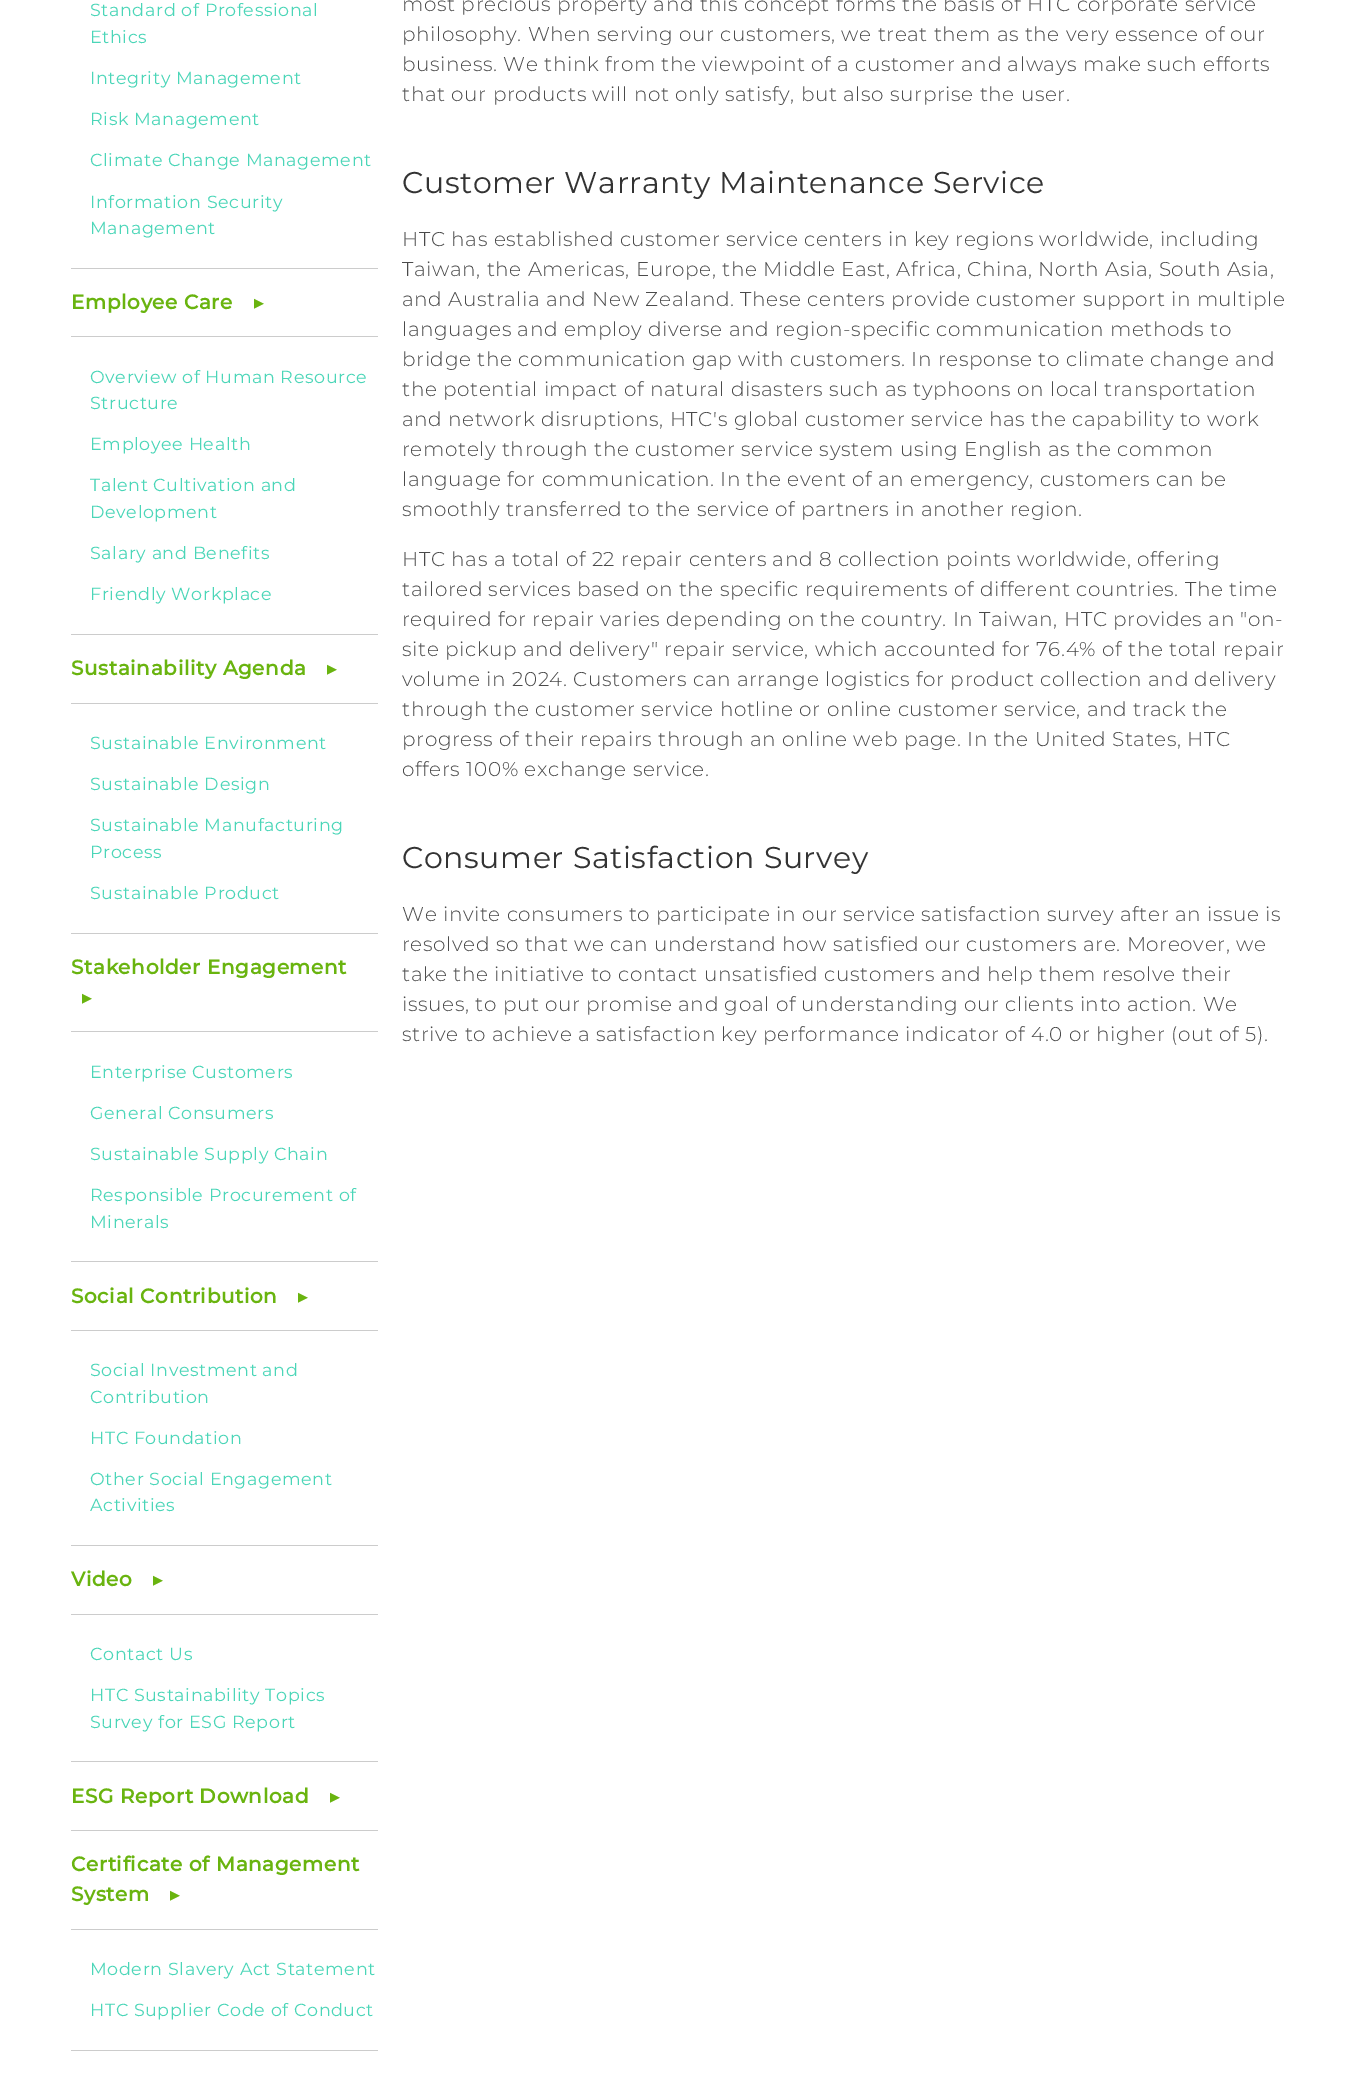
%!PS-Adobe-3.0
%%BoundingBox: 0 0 1365 2084
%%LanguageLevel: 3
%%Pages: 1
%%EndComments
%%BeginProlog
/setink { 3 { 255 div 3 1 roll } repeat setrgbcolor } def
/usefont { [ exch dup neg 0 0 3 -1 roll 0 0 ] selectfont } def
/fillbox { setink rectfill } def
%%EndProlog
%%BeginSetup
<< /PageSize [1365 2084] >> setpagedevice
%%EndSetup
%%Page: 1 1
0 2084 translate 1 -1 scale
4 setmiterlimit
0 0 1365 2084 255 255 255 fillbox
71 268 307 1 204 204 204 fillbox
/Montserrat-Regular 17.5 usefont
75 214 184 setink
90 16 moveto 0.62 0 (Standard of Professional) ashow
90 43 moveto 0.62 0 (Ethics) ashow
90 84 moveto 0.62 0 (Integrity Management) ashow
90 125 moveto 0.62 0 (Risk Management) ashow
90 166 moveto 0.62 0 (Climate Change Management) ashow
90 208 moveto 0.62 0 (Information Security) ashow
90 234 moveto 0.62 0 (Management) ashow
71 336 307 1 204 204 204 fillbox
/Montserrat-Bold 20 usefont
105 180 15 setink
71 309 moveto 0.62 0 (Employee Care) ashow
/DejaVuSans-Regular 20 usefont
254 309 moveto 0.62 0 (▸) ashow
71 634 307 1 204 204 204 fillbox
/Montserrat-Regular 17.5 usefont
75 214 184 setink
90 383 moveto 0.62 0 (Overview of Human Resource) ashow
90 409 moveto 0.62 0 (Structure) ashow
90 450 moveto 0.62 0 (Employee Health) ashow
90 491 moveto 0.62 0 (Talent Cultivation and) ashow
90 518 moveto 0.62 0 (Development) ashow
90 559 moveto 0.62 0 (Salary and Benefits) ashow
90 600 moveto 0.62 0 (Friendly Workplace) ashow
71 703 307 1 204 204 204 fillbox
/Montserrat-Bold 20 usefont
105 180 15 setink
71 675 moveto 0.62 0 (Sustainability Agenda) ashow
/DejaVuSans-Regular 20 usefont
327 675 moveto 0.62 0 (▸) ashow
71 933 307 1 204 204 204 fillbox
/Montserrat-Regular 17.5 usefont
75 214 184 setink
90 749 moveto 0.62 0 (Sustainable Environment) ashow
90 790 moveto 0.62 0 (Sustainable Design) ashow
90 831 moveto 0.62 0 (Sustainable Manufacturing) ashow
90 858 moveto 0.62 0 (Process) ashow
90 899 moveto 0.62 0 (Sustainable Product) ashow
71 1031 307 1 204 204 204 fillbox
/Montserrat-Bold 20 usefont
105 180 15 setink
71 974 moveto 0.62 0 (Stakeholder Engagement) ashow
/DejaVuSans-Regular 20 usefont
82 1004 moveto 0.62 0 (▸) ashow
71 1261 307 1 204 204 204 fillbox
/Montserrat-Regular 17.5 usefont
75 214 184 setink
90 1078 moveto 0.62 0 (Enterprise Customers) ashow
90 1119 moveto 0.62 0 (General Consumers) ashow
90 1160 moveto 0.62 0 (Sustainable Supply Chain) ashow
90 1201 moveto 0.62 0 (Responsible Procurement of) ashow
90 1228 moveto 0.62 0 (Minerals) ashow
71 1330 307 1 204 204 204 fillbox
/Montserrat-Bold 20 usefont
105 180 15 setink
71 1303 moveto 0.62 0 (Social Contribution) ashow
/DejaVuSans-Regular 20 usefont
298 1303 moveto 0.62 0 (▸) ashow
71 1545 307 1 204 204 204 fillbox
/Montserrat-Regular 17.5 usefont
75 214 184 setink
90 1376 moveto 0.62 0 (Social Investment and) ashow
90 1403 moveto 0.62 0 (Contribution) ashow
90 1444 moveto 0.62 0 (HTC Foundation) ashow
90 1485 moveto 0.62 0 (Other Social Engagement) ashow
90 1511 moveto 0.62 0 (Activities) ashow
71 1614 307 1 204 204 204 fillbox
/Montserrat-Bold 20 usefont
105 180 15 setink
71 1586 moveto 0.62 0 (Video) ashow
/DejaVuSans-Regular 20 usefont
153 1586 moveto 0.62 0 (▸) ashow
71 1761 307 1 204 204 204 fillbox
/Montserrat-Regular 17.5 usefont
75 214 184 setink
90 1660 moveto 0.62 0 (Contact Us) ashow
90 1701 moveto 0.62 0 (HTC Sustainability Topics) ashow
90 1728 moveto 0.62 0 (Survey for ESG Report) ashow
71 1830 307 1 204 204 204 fillbox
/Montserrat-Bold 20 usefont
105 180 15 setink
71 1803 moveto 0.62 0 (ESG Report Download) ashow
/DejaVuSans-Regular 20 usefont
330 1803 moveto 0.62 0 (▸) ashow
71 1929 307 1 204 204 204 fillbox
/Montserrat-Bold 20 usefont
105 180 15 setink
71 1871 moveto 0.62 0 (Certificate of Management) ashow
71 1901 moveto 0.62 0 (System) ashow
/DejaVuSans-Regular 20 usefont
170 1901 moveto 0.62 0 (▸) ashow
71 2050 307 1 204 204 204 fillbox
/Montserrat-Regular 17.5 usefont
75 214 184 setink
90 1975 moveto 0.62 0 (Modern Slavery Act Statement) ashow
90 2016 moveto 0.62 0 (HTC Supplier Code of Conduct) ashow
/Montserrat-Light 20 usefont
74 74 74 setink
402 11 moveto 0.62 0 (most precious property and this concept forms the basis of HTC corporate service) ashow
402 41 moveto 0.62 0 (philosophy. When serving our customers, we treat them as the very essence of our) ashow
402 71 moveto 0.62 0 (business. We think from the viewpoint of a customer and always make such efforts) ashow
402 101 moveto 0.62 0 (that our products will not only satisfy, but also surprise the user.) ashow
/Montserrat-Regular 30 usefont
51 51 51 setink
402 193 moveto 0.62 0 (Customer Warranty Maintenance Service) ashow
/Montserrat-Light 20 usefont
74 74 74 setink
402 246 moveto 0.62 0 (HTC has established customer service centers in key regions worldwide, including) ashow
402 276 moveto 0.62 0 (Taiwan, the Americas, Europe, the Middle East, Africa, China, North Asia, South Asia,) ashow
402 306 moveto 0.62 0 (and Australia and New Zealand. These centers provide customer support in multiple) ashow
402 336 moveto 0.62 0 (languages and employ diverse and region-specific communication methods to) ashow
402 366 moveto 0.62 0 (bridge the communication gap with customers. In response to climate change and) ashow
402 396 moveto 0.62 0 (the potential impact of natural disasters such as typhoons on local transportation) ashow
402 426 moveto 0.62 0 (and network disruptions, HTC's global customer service has the capability to work) ashow
402 456 moveto 0.62 0 (remotely through the customer service system using English as the common) ashow
402 486 moveto 0.62 0 (language for communication. In the event of an emergency, customers can be) ashow
402 516 moveto 0.62 0 (smoothly transferred to the service of partners in another region.) ashow
402 566 moveto 0.62 0 (HTC has a total of 22 repair centers and 8 collection points worldwide, offering) ashow
402 596 moveto 0.62 0 (tailored services based on the specific requirements of different countries. The time) ashow
402 626 moveto 0.62 0 (required for repair varies depending on the country. In Taiwan, HTC provides an "on-) ashow
402 656 moveto 0.62 0 (site pickup and delivery" repair service, which accounted for 76.4% of the total repair) ashow
402 686 moveto 0.62 0 (volume in 2024. Customers can arrange logistics for product collection and delivery) ashow
402 716 moveto 0.62 0 (through the customer service hotline or online customer service, and track the) ashow
402 746 moveto 0.62 0 (progress of their repairs through an online web page. In the United States, HTC) ashow
402 776 moveto 0.62 0 (offers 100% exchange service.) ashow
/Montserrat-Regular 30 usefont
51 51 51 setink
402 868 moveto 0.62 0 (Consumer Satisfaction Survey) ashow
/Montserrat-Light 20 usefont
74 74 74 setink
402 921 moveto 0.62 0 (We invite consumers to participate in our service satisfaction survey after an issue is) ashow
402 951 moveto 0.62 0 (resolved so that we can understand how satisfied our customers are. Moreover, we) ashow
402 981 moveto 0.62 0 (take the initiative to contact unsatisfied customers and help them resolve their) ashow
402 1011 moveto 0.62 0 (issues, to put our promise and goal of understanding our clients into action. We) ashow
402 1041 moveto 0.62 0 (strive to achieve a satisfaction key performance indicator of 4.0 or higher \(out of 5\).) ashow
showpage
%%EOF
